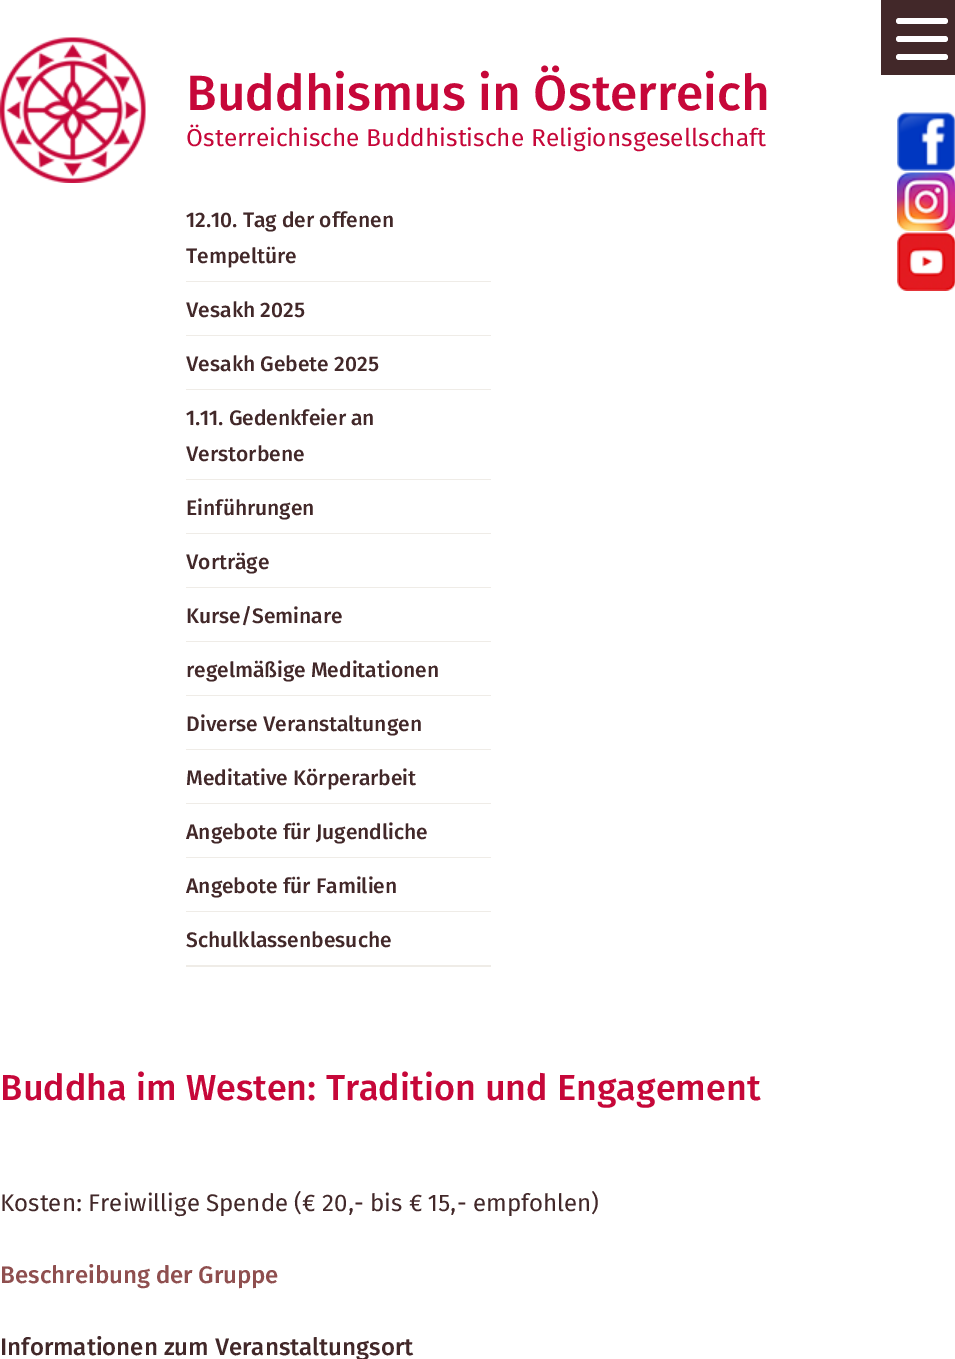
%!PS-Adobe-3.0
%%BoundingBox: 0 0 955 1359
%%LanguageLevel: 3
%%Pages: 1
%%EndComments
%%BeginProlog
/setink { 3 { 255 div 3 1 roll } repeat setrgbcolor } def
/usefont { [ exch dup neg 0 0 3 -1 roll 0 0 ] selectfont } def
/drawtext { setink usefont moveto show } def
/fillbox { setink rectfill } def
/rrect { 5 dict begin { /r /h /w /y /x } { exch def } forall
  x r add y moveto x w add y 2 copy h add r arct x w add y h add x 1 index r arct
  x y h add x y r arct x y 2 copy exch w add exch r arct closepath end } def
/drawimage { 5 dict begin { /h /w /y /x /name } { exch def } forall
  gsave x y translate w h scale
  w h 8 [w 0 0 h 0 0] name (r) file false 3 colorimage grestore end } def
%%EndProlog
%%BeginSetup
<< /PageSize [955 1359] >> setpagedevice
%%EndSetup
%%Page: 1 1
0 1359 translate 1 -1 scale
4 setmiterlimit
0 0 955 1359 255 255 255 fillbox
881 0 74 75 66 40 41 fillbox
255 255 255 setink
896 18 52 6 3 rrect fill
896 36 52 6 3 rrect fill
896 54 52 6 3 rrect fill
(assets/img1.rgb) 0 37 146 146 drawimage
(Buddhismus in Österreich) 186 110 /FiraSans-Medium 49.5 198 7 57 drawtext
(Österreichische Buddhistische Religionsgesellschaft) 186 146 /FiraSans-Regular 24.45 198 7 57 drawtext
(assets/img2.rgb) 897 112 58 59 drawimage
(assets/img3.rgb) 897 172 58 59 drawimage
186 281 305 1 239 236 231 fillbox
(12.10. Tag der offenen) 186 227 /FiraSans-Medium 21 66 40 41 drawtext
(Tempeltüre) 186 263 /FiraSans-Medium 21 66 40 41 drawtext
186 335 305 1 239 236 231 fillbox
(Vesakh 2025) 186 317 /FiraSans-Medium 21 66 40 41 drawtext
186 389 305 1 239 236 231 fillbox
(Vesakh Gebete 2025) 186 371 /FiraSans-Medium 21 66 40 41 drawtext
186 479 305 1 239 236 231 fillbox
(1.11. Gedenkfeier an) 186 425 /FiraSans-Medium 21 66 40 41 drawtext
(Verstorbene) 186 461 /FiraSans-Medium 21 66 40 41 drawtext
186 533 305 1 239 236 231 fillbox
(Einführungen) 186 515 /FiraSans-Medium 21 66 40 41 drawtext
186 587 305 1 239 236 231 fillbox
(Vorträge) 186 569 /FiraSans-Medium 21 66 40 41 drawtext
186 641 305 1 239 236 231 fillbox
(Kurse/Seminare) 186 623 /FiraSans-Medium 21 66 40 41 drawtext
186 695 305 1 239 236 231 fillbox
(regelmäßige Meditationen) 186 677 /FiraSans-Medium 21 66 40 41 drawtext
186 749 305 1 239 236 231 fillbox
(Diverse Veranstaltungen) 186 731 /FiraSans-Medium 21 66 40 41 drawtext
186 803 305 1 239 236 231 fillbox
(Meditative Körperarbeit) 186 785 /FiraSans-Medium 21 66 40 41 drawtext
186 857 305 1 239 236 231 fillbox
(Angebote für Jugendliche) 186 839 /FiraSans-Medium 21 66 40 41 drawtext
186 911 305 1 239 236 231 fillbox
(Angebote für Familien) 186 893 /FiraSans-Medium 21 66 40 41 drawtext
186 965 305 2 239 236 231 fillbox
(Schulklassenbesuche) 186 947 /FiraSans-Medium 21 66 40 41 drawtext
(Buddha im Westen: Tradition und Engagement) 0 1100 /FiraSans-Medium 36 198 7 57 drawtext
(Kosten: Freiwillige Spende \(€ 20,- bis € 15,- empfohlen\)) 0 1211 /FiraSans-Regular 24 66 40 41 drawtext
(Beschreibung der Gruppe) 0 1283 /FiraSans-Medium 24 143 79 79 drawtext
(Informationen zum Veranstaltungsort) 0 1355 /FiraSans-Medium 24 66 40 41 drawtext
(assets/img4.rgb) 897 232 58 59 drawimage
showpage
%%EOF
